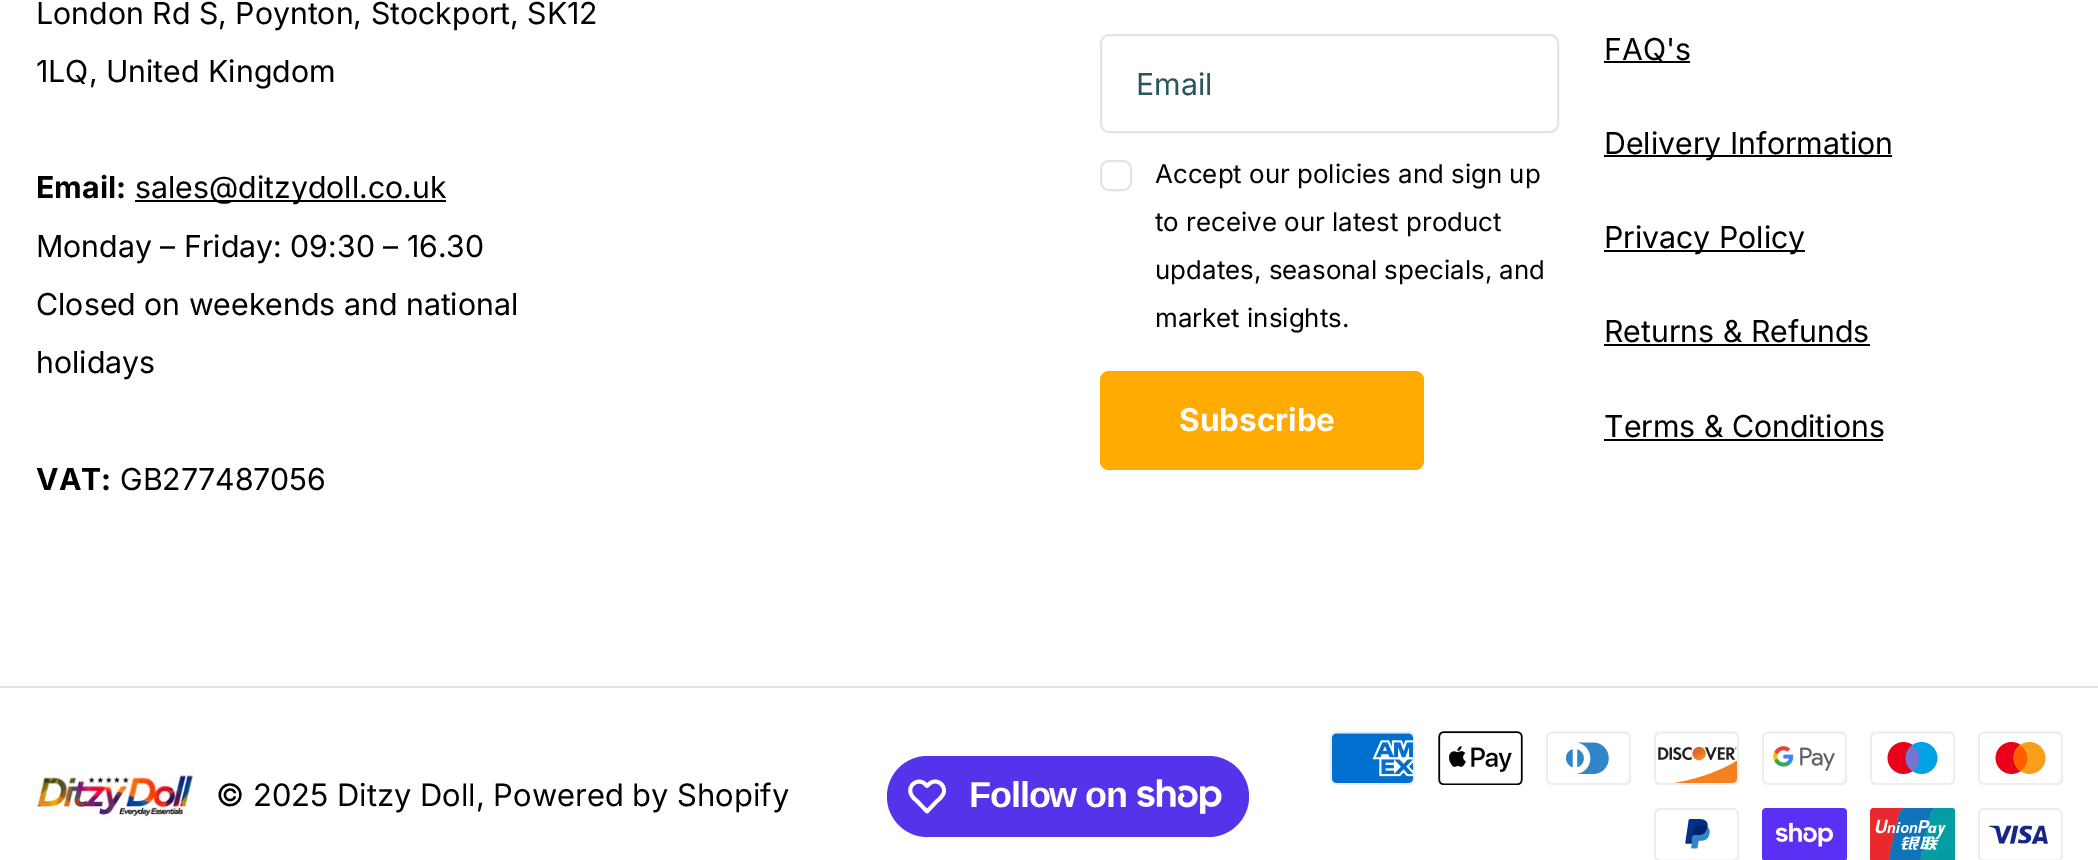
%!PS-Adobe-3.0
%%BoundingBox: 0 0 2098 860
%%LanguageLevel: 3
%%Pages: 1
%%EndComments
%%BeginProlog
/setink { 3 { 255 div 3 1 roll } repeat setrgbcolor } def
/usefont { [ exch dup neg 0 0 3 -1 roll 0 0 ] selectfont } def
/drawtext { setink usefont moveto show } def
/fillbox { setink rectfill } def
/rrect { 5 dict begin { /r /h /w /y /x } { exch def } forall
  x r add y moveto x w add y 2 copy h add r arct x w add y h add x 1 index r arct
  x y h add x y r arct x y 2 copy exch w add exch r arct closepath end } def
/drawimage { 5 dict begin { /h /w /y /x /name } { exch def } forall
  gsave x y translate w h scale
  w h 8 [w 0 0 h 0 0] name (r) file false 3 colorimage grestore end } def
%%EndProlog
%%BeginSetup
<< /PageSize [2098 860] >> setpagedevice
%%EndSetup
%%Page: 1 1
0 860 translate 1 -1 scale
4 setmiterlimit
0 0 2098 860 255 255 255 fillbox
(London Rd S, Poynton, Stockport, SK12) 36 24 /Inter-Regular 30.25 0 0 0 drawtext
(1LQ, United Kingdom) 36 82 /Inter-Regular 30.25 0 0 0 drawtext
(Email:) 36 198 /Inter-Bold 30.25 0 0 0 drawtext
135 200 311 2 0 0 0 fillbox
(sales@ditzydoll.co.uk) 135 198 /Inter-Regular 30.25 0 0 0 drawtext
(Monday – Friday: 09:30 – 16.30) 36 257 /Inter-Regular 30.25 0 0 0 drawtext
(Closed on weekends and national) 36 315 /Inter-Regular 30.25 0 0 0 drawtext
(holidays) 36 373 /Inter-Regular 30.25 0 0 0 drawtext
(VAT:) 36 490 /Inter-Bold 30.25 0 0 0 drawtext
(GB277487056) 120 490 /Inter-Regular 30.25 0 0 0 drawtext
228 228 228 setink
2 setlinewidth
1101 35 457 97 8 rrect stroke
(Email) 1136 95 /Inter-Regular 30.25 42 85 90 drawtext
228 228 228 setink
1101 161 30 29 8 rrect stroke
(Accept our policies and sign up) 1155 183 /Inter-Regular 25.9 0 0 0 drawtext
(to receive our latest product) 1155 231 /Inter-Regular 25.9 0 0 0 drawtext
(updates, seasonal specials, and) 1155 279 /Inter-Regular 25.9 0 0 0 drawtext
(market insights.) 1155 327 /Inter-Regular 25.9 0 0 0 drawtext
255 171 2 setink
1100 371 324 99 9 rrect fill
(Subscribe) 1179 431 /Inter-Bold 31.5 255 255 255 drawtext
1604 61 86 2 0 0 0 fillbox
(FAQ's) 1604 60 /Inter-Regular 30.25 0 0 0 drawtext
1604 155 288 2 0 0 0 fillbox
(Delivery Information) 1604 154 /Inter-Regular 30.25 0 0 0 drawtext
1604 250 201 2 0 0 0 fillbox
(Privacy Policy) 1604 248 /Inter-Regular 30.25 0 0 0 drawtext
(Returns & Refunds) 1604 342 /Inter-Regular 30.25 0 0 0 drawtext
1604 344 266 2 0 0 0 fillbox
(Terms & Conditions) 1604 437 /Inter-Regular 30.25 0 0 0 drawtext
1604 439 279 2 0 0 0 fillbox
0 686 2098 2 228 228 228 fillbox
(assets/img1.rgb) 36 771 157 48 drawimage
(© 2025 Ditzy Doll, Powered by Shopify) 216 806 /Inter-Regular 30.9 0 0 0 drawtext
84 51 235 setink
887 756 362 81 40.5 rrect fill
255 255 255 setink
3.8 setlinewidth
1 setlinejoin
925 784 moveto 927 786 lineto 928.5 784.5 930 782.5 932.5 782 curveto 939.5 779.5 946 787 943.5 793.5 curveto 942 797 939 799.5 936.5 801.5 curveto 927 811.5 lineto 917.5 801.5 lineto 915 799.5 912 797 911 794 curveto 907 785 918.5 777.5 925 784 curveto closepath stroke
/LiberationSans-Bold 36 usefont
969 807 moveto -1.1 0 (Follow on) ashow
(assets/img2.rgb) 1137 779 85 35 drawimage
(assets/img3.rgb) 1330 731 85 54 drawimage
(assets/img4.rgb) 1438 731 85 54 drawimage
(assets/img5.rgb) 1546 731 85 54 drawimage
(assets/img6.rgb) 1654 731 85 54 drawimage
(assets/img7.rgb) 1762 731 85 54 drawimage
(assets/img8.rgb) 1870 731 85 54 drawimage
(assets/img9.rgb) 1978 731 85 54 drawimage
(assets/img10.rgb) 1654 808 85 52 drawimage
(assets/img11.rgb) 1762 808 85 52 drawimage
(assets/img12.rgb) 1870 808 85 52 drawimage
(assets/img13.rgb) 1978 808 85 52 drawimage
showpage
%%EOF
